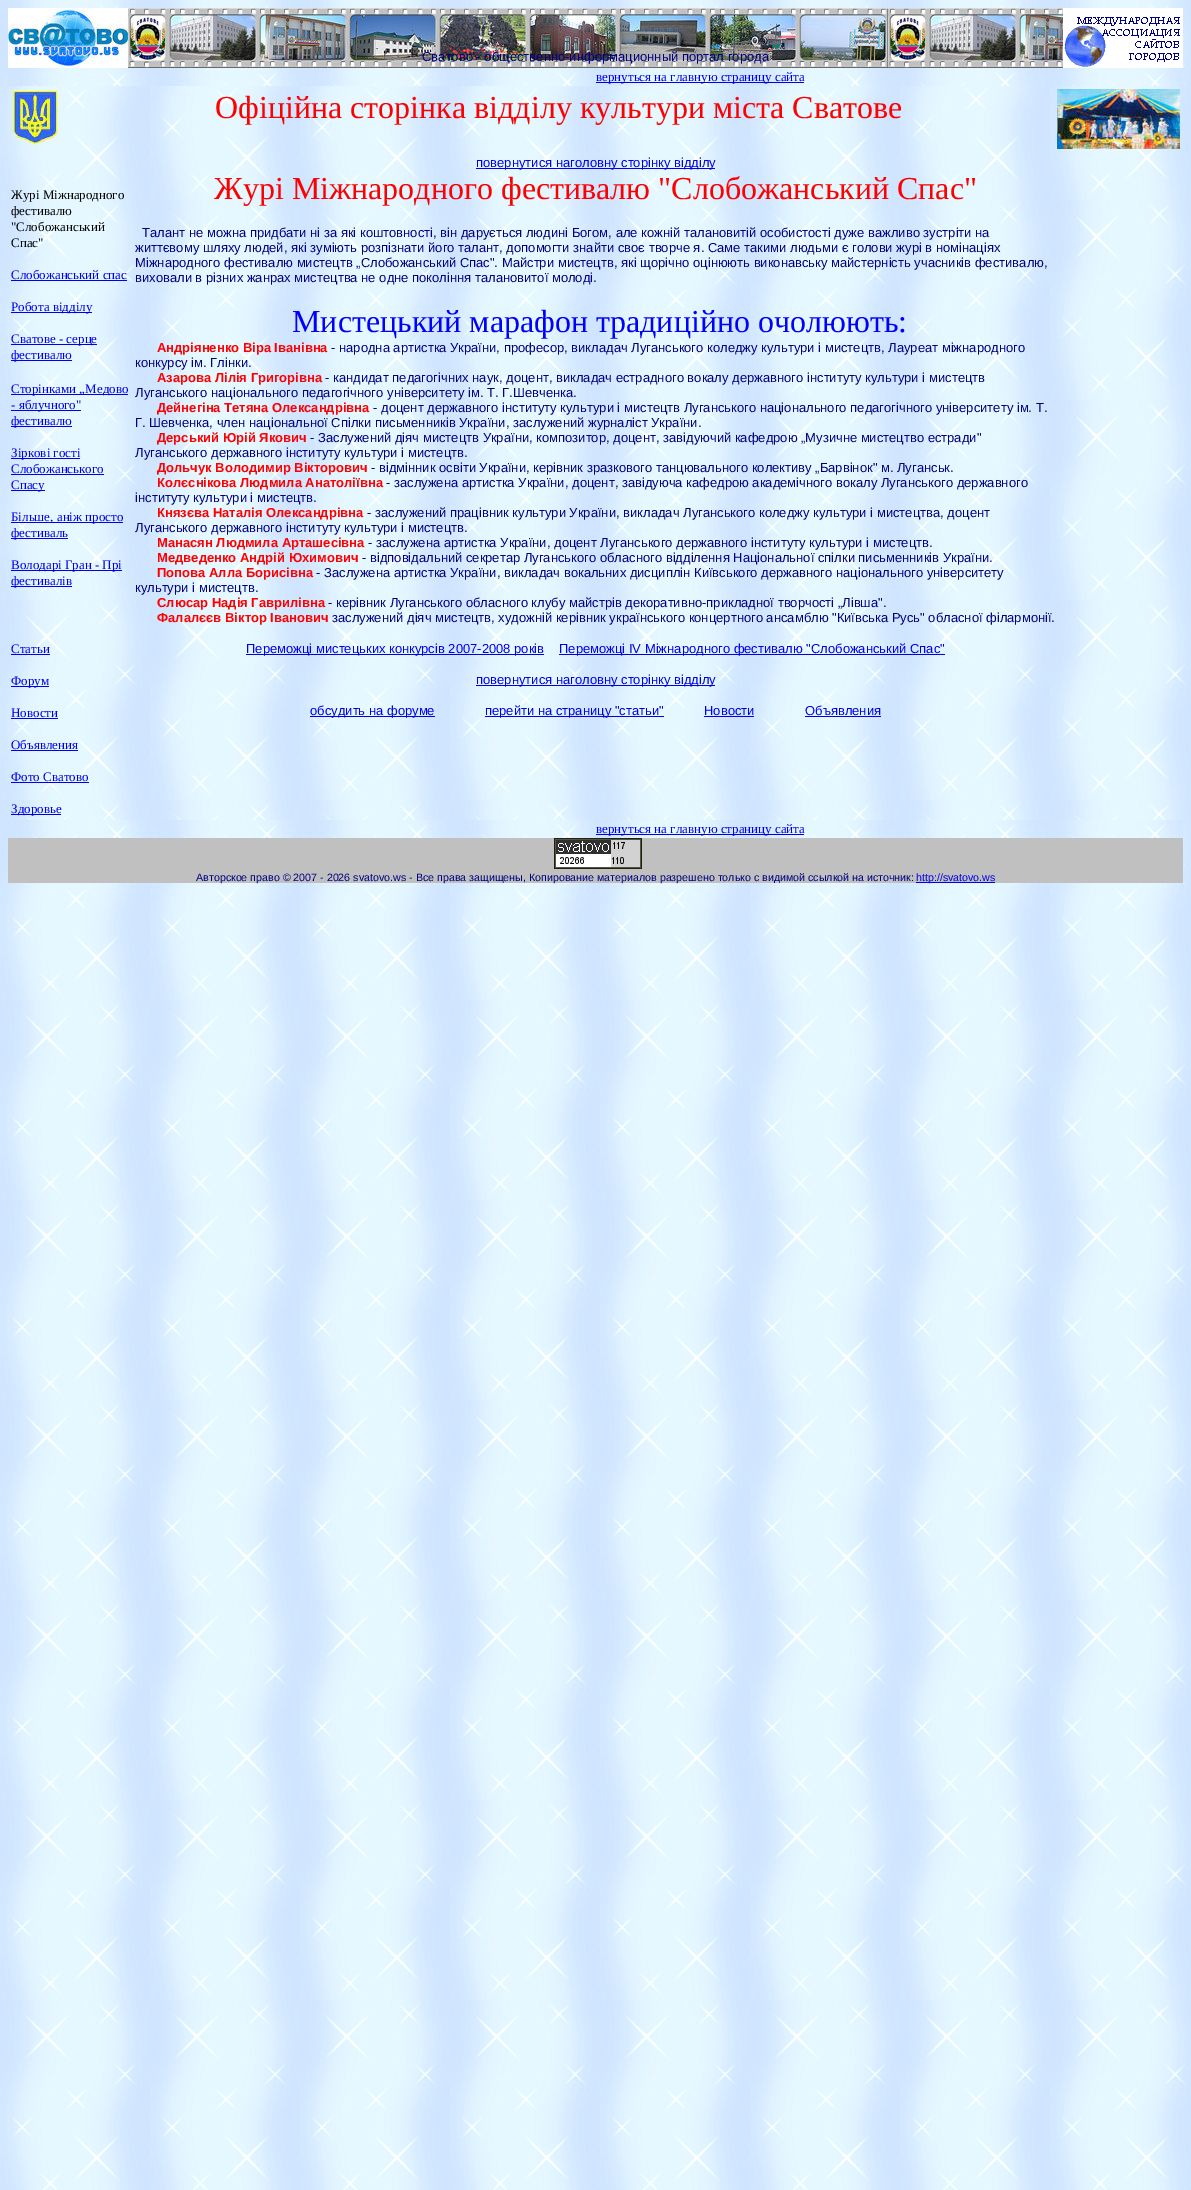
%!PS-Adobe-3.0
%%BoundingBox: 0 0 1191 2190
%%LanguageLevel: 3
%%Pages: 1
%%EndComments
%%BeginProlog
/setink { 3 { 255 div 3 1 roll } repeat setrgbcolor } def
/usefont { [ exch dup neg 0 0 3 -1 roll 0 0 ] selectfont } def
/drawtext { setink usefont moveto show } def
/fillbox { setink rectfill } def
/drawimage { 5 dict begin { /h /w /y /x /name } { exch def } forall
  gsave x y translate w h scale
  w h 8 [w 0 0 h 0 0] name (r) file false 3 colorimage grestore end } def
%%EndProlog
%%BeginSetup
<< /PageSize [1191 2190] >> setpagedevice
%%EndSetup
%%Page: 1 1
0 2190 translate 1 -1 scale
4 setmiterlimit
0 0 1191 2190 255 255 255 fillbox
(assets/img1.rgb) 0 0 1191 2190 drawimage
(assets/img2.rgb) 8 8 120 60 drawimage
(assets/img3.rgb) 128 8 935 60 drawimage
(Сватово - общественно-информационный портал города) 422 61 /LiberationSans-Regular 13 0 0 128 drawtext
1063 8 120 60 255 255 255 fillbox
(assets/img4.rgb) 1064 17 116 50 drawimage
(assets/img5.rgb) 8 68 588 18 drawimage
(assets/img6.rgb) 596 68 587 18 drawimage
596 82 208 1 0 0 238 fillbox
(вернуться на главную страницу сайта) 596 81 /LiberationSerif-Regular 13 0 0 238 drawtext
(assets/img7.rgb) 13 90 45 55 drawimage
(Офіційна сторінка відділу культури міста Сватове) 215 118 /LiberationSerif-Regular 32 255 0 0 drawtext
(assets/img8.rgb) 1057 89 123 60 drawimage
(Журі Міжнародного) 11 199 /LiberationSerif-Regular 13 0 0 0 drawtext
(фестивалю) 11 215 /LiberationSerif-Regular 13 0 0 0 drawtext
("Слобожанський) 11 231 /LiberationSerif-Regular 13 0 0 0 drawtext
(Спас") 11 247 /LiberationSerif-Regular 13 0 0 0 drawtext
(Слобожанський спас) 11 279 /LiberationSerif-Regular 13 0 0 238 drawtext
11 280 116 1 0 0 238 fillbox
11 312 81 1 0 0 238 fillbox
(Робота відділу) 11 311 /LiberationSerif-Regular 13 0 0 238 drawtext
11 344 86 1 0 0 238 fillbox
(Сватове - серце) 11 343 /LiberationSerif-Regular 13 0 0 238 drawtext
11 360 61 1 0 0 238 fillbox
(фестивалю) 11 359 /LiberationSerif-Regular 13 0 0 238 drawtext
11 394 117 1 0 0 238 fillbox
(Сторінками „Медово) 11 393 /LiberationSerif-Regular 13 0 0 238 drawtext
11 410 70 1 0 0 238 fillbox
(- яблучного") 11 409 /LiberationSerif-Regular 13 0 0 238 drawtext
11 426 61 1 0 0 238 fillbox
(фестивалю) 11 425 /LiberationSerif-Regular 13 0 0 238 drawtext
11 458 69 1 0 0 238 fillbox
(Зіркові гості) 11 457 /LiberationSerif-Regular 13 0 0 238 drawtext
(Слобожанського) 11 473 /LiberationSerif-Regular 13 0 0 238 drawtext
11 474 93 1 0 0 238 fillbox
11 490 34 1 0 0 238 fillbox
(Спасу) 11 489 /LiberationSerif-Regular 13 0 0 238 drawtext
11 522 112 1 0 0 238 fillbox
(Більше, аніж просто) 11 521 /LiberationSerif-Regular 13 0 0 238 drawtext
11 538 57 1 0 0 238 fillbox
(фестиваль) 11 537 /LiberationSerif-Regular 13 0 0 238 drawtext
11 570 111 1 0 0 238 fillbox
(Володарі Гран - Прі) 11 569 /LiberationSerif-Regular 13 0 0 238 drawtext
11 586 61 1 0 0 238 fillbox
(фестивалів) 11 585 /LiberationSerif-Regular 13 0 0 238 drawtext
(Статьи) 11 653 /LiberationSerif-Regular 13 0 0 238 drawtext
11 654 39 1 0 0 238 fillbox
11 686 38 1 0 0 238 fillbox
(Форум) 11 685 /LiberationSerif-Regular 13 0 0 238 drawtext
(Новости) 11 717 /LiberationSerif-Regular 13 0 0 238 drawtext
11 718 47 1 0 0 238 fillbox
(Объявления) 11 749 /LiberationSerif-Regular 13 0 0 238 drawtext
11 750 67 1 0 0 238 fillbox
(Фото Сватово) 11 781 /LiberationSerif-Regular 13 0 0 238 drawtext
11 782 78 1 0 0 238 fillbox
11 814 50 1 0 0 238 fillbox
(Здоровье) 11 813 /LiberationSerif-Regular 13 0 0 238 drawtext
476 168 239 1 0 0 238 fillbox
(повернутися наголовну сторінку відділу) 476 167 /LiberationSans-Regular 13 0 0 238 drawtext
(Журі Міжнародного фестивалю "Слобожанський Спас") 214 199 /LiberationSerif-Regular 32 255 0 0 drawtext
(Талант не можна придбати ні за які коштовності, він дарується людині Богом, але кожній талановитій особистості дуже важливо зустріти на) 142 237 /LiberationSans-Regular 13 0 0 128 drawtext
(життєвому шляху людей, які зуміють розпізнати його талант, допомогти знайти своє творче я. Саме такими людьми є голови журі в номінаціях) 135 252 /LiberationSans-Regular 13 0 0 128 drawtext
(Міжнародного фестивалю мистецтв „Слобожанський Спас". Майстри мистецтв, які щорічно оцінюють виконавську майстерність учасників фестивалю,) 135 267 /LiberationSans-Regular 13 0 0 128 drawtext
(виховали в різних жанрах мистецтва не одне покоління талановитої молоді.) 135 282 /LiberationSans-Regular 13 0 0 128 drawtext
(Мистецький марафон традиційно очолюють:) 292 332 /LiberationSerif-Regular 32 0 0 255 drawtext
(Андріяненко Віра Іванівна) 157 352 /LiberationSans-Bold 13 255 0 0 drawtext
(- народна артистка України, професор, викладач Луганського коледжу культури і мистецтв, Лауреат міжнародного) 331 352 /LiberationSans-Regular 13 0 0 128 drawtext
(конкурсу ім. Глінки.) 135 367 /LiberationSans-Regular 13 0 0 128 drawtext
(Азарова Лілія Григорівна) 157 382 /LiberationSans-Bold 13 255 0 0 drawtext
(- кандидат педагогічних наук, доцент, викладач естрадного вокалу державного інституту культури і мистецтв) 325 382 /LiberationSans-Regular 13 0 0 128 drawtext
(Луганського національного педагогічного університету ім. Т. Г.Шевченка.) 135 397 /LiberationSans-Regular 13 0 0 128 drawtext
(Дейнегіна Тетяна Олександрівна) 157 412 /LiberationSans-Bold 13 255 0 0 drawtext
(- доцент державного інституту культури і мистецтв Луганського національного педагогічного університету ім. Т.) 373 412 /LiberationSans-Regular 13 0 0 128 drawtext
(Г. Шевченка, член національної Спілки письменників України, заслужений журналіст України.) 135 427 /LiberationSans-Regular 13 0 0 128 drawtext
(Дерський Юрій Якович) 157 442 /LiberationSans-Bold 13 255 0 0 drawtext
(- Заслужений діяч мистецтв України, композитор, доцент, завідуючий кафедрою „Музичне мистецтво естради") 310 442 /LiberationSans-Regular 13 0 0 128 drawtext
(Луганського державного інституту культури і мистецтв.) 135 457 /LiberationSans-Regular 13 0 0 128 drawtext
(Дольчук Володимир Вікторович) 157 472 /LiberationSans-Bold 13 255 0 0 drawtext
(- відмінник освіти України, керівник зразкового танцювального колективу „Барвінок" м. Луганськ.) 371 472 /LiberationSans-Regular 13 0 0 128 drawtext
(Колєснікова Людмила Анатоліївна) 157 487 /LiberationSans-Bold 13 255 0 0 drawtext
(- заслужена артистка України, доцент, завідуюча кафедрою академічного вокалу Луганського державного) 386 487 /LiberationSans-Regular 13 0 0 128 drawtext
(інституту культури і мистецтв.) 135 502 /LiberationSans-Regular 13 0 0 128 drawtext
(Князєва Наталія Олександрівна) 157 517 /LiberationSans-Bold 13 255 0 0 drawtext
(- заслужений працівник культури України, викладач Луганського коледжу культури і мистецтва, доцент) 367 517 /LiberationSans-Regular 13 0 0 128 drawtext
(Луганського державного інституту культури і мистецтв.) 135 532 /LiberationSans-Regular 13 0 0 128 drawtext
(Манасян Людмила Арташесівна) 157 547 /LiberationSans-Bold 13 255 0 0 drawtext
(- заслужена артистка України, доцент Луганського державного інституту культури і мистецтв.) 368 547 /LiberationSans-Regular 13 0 0 128 drawtext
(Медведенко Андрій Юхимович) 157 562 /LiberationSans-Bold 13 255 0 0 drawtext
(- відповідальний секретар Луганського обласного відділення Національної спілки письменників України.) 362 562 /LiberationSans-Regular 13 0 0 128 drawtext
(Попова Алла Борисівна) 157 577 /LiberationSans-Bold 13 255 0 0 drawtext
(- Заслужена артистка України, викладач вокальних дисциплін Київського державного національного університету) 316 577 /LiberationSans-Regular 13 0 0 128 drawtext
(культури і мистецтв.) 135 592 /LiberationSans-Regular 13 0 0 128 drawtext
(Слюсар Надія Гаврилівна) 157 607 /LiberationSans-Bold 13 255 0 0 drawtext
(- керівник Луганського обласного клубу майстрів декоративно-прикладної творчості „Лівша".) 328 607 /LiberationSans-Regular 13 0 0 128 drawtext
(Фалалєєв Віктор Іванович) 157 622 /LiberationSans-Bold 13 255 0 0 drawtext
(заслужений діяч мистецтв, художній керівник українського концертного ансамблю "Київська Русь" обласної філармонії.) 332 622 /LiberationSans-Regular 13 0 0 128 drawtext
246 654 298 1 0 0 238 fillbox
(Переможці мистецьких конкурсів 2007-2008 років) 246 653 /LiberationSans-Regular 13 0 0 238 drawtext
559 654 386 1 0 0 238 fillbox
(Переможці IV Міжнародного фестивалю "Слобожанський Спас") 559 653 /LiberationSans-Regular 13 0 0 238 drawtext
476 685 239 1 0 0 238 fillbox
(повернутися наголовну сторінку відділу) 476 684 /LiberationSans-Regular 13 0 0 238 drawtext
310 716 125 1 0 0 238 fillbox
(обсудить на форуме) 310 715 /LiberationSans-Regular 13 0 0 238 drawtext
485 716 179 1 0 0 238 fillbox
(перейти на страницу "статьи") 485 715 /LiberationSans-Regular 13 0 0 238 drawtext
(Новости) 704 715 /LiberationSans-Regular 13 0 0 238 drawtext
704 716 50 1 0 0 238 fillbox
(Объявления) 805 715 /LiberationSans-Regular 13 0 0 238 drawtext
805 716 76 1 0 0 238 fillbox
(assets/img5.rgb) 8 820 588 18 drawimage
(assets/img6.rgb) 596 820 587 18 drawimage
596 834 208 1 0 0 238 fillbox
(вернуться на главную страницу сайта) 596 833 /LiberationSerif-Regular 13 0 0 238 drawtext
8 838 1175 45 192 192 192 fillbox
(assets/img9.rgb) 554 838 88 31 drawimage
(Авторское право © 2007 - 2026 svatovo.ws - Все права защищены, Копирование материалов разрешено только с видимой ссылкой на источник:) 196 881 /LiberationSans-Regular 10.67 0 0 128 drawtext
916 882 79 1 0 0 238 fillbox
(http://svatovo.ws) 916 881 /LiberationSans-Regular 10.67 0 0 238 drawtext
showpage
%%EOF
